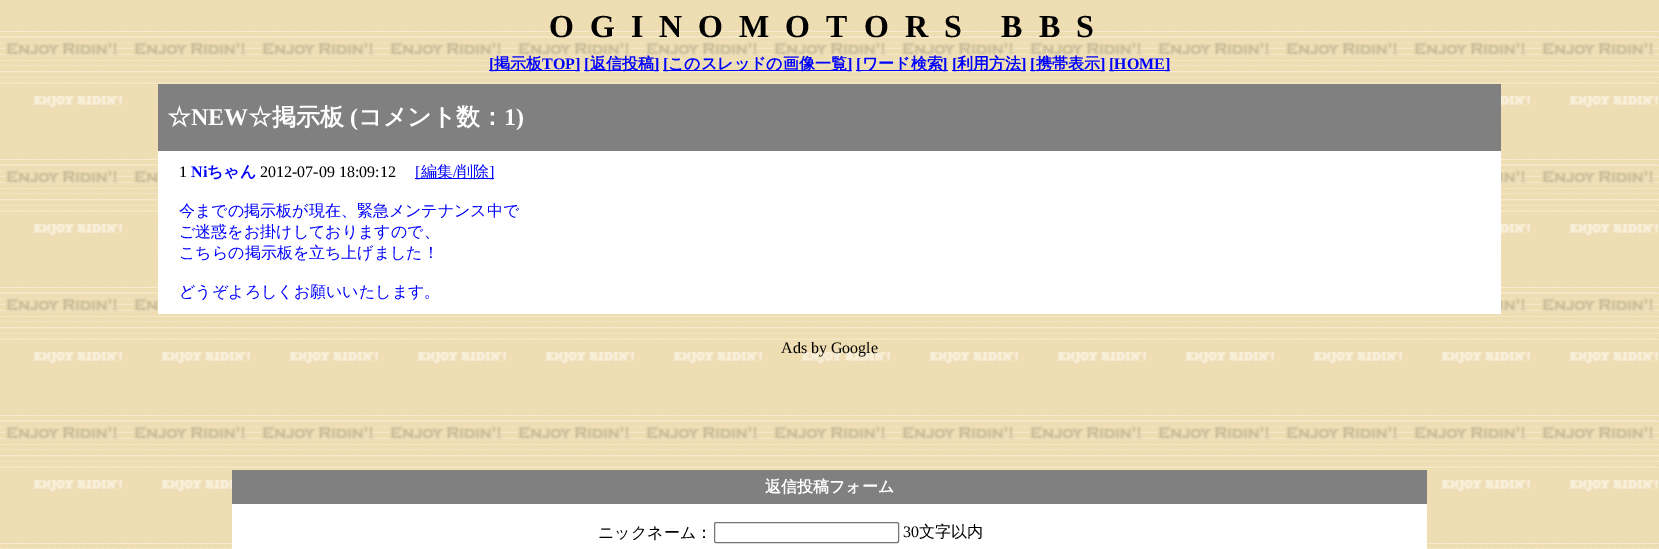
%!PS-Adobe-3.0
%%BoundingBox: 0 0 1659 549
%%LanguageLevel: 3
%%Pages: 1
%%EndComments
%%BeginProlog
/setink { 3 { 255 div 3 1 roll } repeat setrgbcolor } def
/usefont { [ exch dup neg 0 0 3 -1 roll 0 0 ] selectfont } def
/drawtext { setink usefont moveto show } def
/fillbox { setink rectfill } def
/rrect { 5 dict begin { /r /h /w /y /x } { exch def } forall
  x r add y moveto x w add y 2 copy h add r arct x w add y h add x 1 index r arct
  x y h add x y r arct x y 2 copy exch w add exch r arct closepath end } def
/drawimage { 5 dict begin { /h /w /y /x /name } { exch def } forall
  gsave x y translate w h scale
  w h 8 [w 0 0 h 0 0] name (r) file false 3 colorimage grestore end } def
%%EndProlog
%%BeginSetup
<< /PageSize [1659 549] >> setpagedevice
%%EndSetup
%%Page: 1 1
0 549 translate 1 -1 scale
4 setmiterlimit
0 0 1659 549 255 255 255 fillbox
(assets/img1.rgb) 0 0 1659 549 drawimage
/LiberationSerif-Bold 32 usefont
0 0 0 setink
549 37 moveto 16 0 (OGINOMOTORS BBS) ashow
489 70 91 1 0 0 255 fillbox
([) 489 69 /LiberationSerif-Bold 16 0 0 255 drawtext
(掲示板) 494 69 /WenQuanYiZenHei-Bold 16 0 0 255 drawtext
(TOP]) 542 69 /LiberationSerif-Bold 16 0 0 255 drawtext
584 70 75 1 0 0 255 fillbox
([) 584 69 /LiberationSerif-Bold 16 0 0 255 drawtext
(返信投稿) 590 69 /WenQuanYiZenHei-Bold 16 0 0 255 drawtext
(]) 654 69 /LiberationSerif-Bold 16 0 0 255 drawtext
663 70 189 1 0 0 255 fillbox
([) 663 69 /LiberationSerif-Bold 16 0 0 255 drawtext
(このスレッドの画像一覧) 668 69 /WenQuanYiZenHei-Bold 16 0 0 255 drawtext
(]) 847 69 /LiberationSerif-Bold 16 0 0 255 drawtext
856 70 92 1 0 0 255 fillbox
([) 856 69 /LiberationSerif-Bold 16 0 0 255 drawtext
(ワード検索) 862 69 /WenQuanYiZenHei-Bold 16 0 0 255 drawtext
(]) 942 69 /LiberationSerif-Bold 16 0 0 255 drawtext
952 70 74 1 0 0 255 fillbox
([) 952 69 /LiberationSerif-Bold 16 0 0 255 drawtext
(利用方法) 957 69 /WenQuanYiZenHei-Bold 16 0 0 255 drawtext
(]) 1021 69 /LiberationSerif-Bold 16 0 0 255 drawtext
1030 70 75 1 0 0 255 fillbox
([) 1030 69 /LiberationSerif-Bold 16 0 0 255 drawtext
(携帯表示) 1036 69 /WenQuanYiZenHei-Bold 16 0 0 255 drawtext
(]) 1100 69 /LiberationSerif-Bold 16 0 0 255 drawtext
1109 70 61 1 0 0 255 fillbox
([HOME]) 1109 69 /LiberationSerif-Bold 16 0 0 255 drawtext
158 84 1343 67 128 128 128 fillbox
(☆) 167 125 /WenQuanYiZenHei-Bold 24 255 255 255 drawtext
(NEW) 191 125 /LiberationSerif-Bold 24 255 255 255 drawtext
(☆掲示板) 248 125 /WenQuanYiZenHei-Bold 24 255 255 255 drawtext
(\() 350 125 /LiberationSerif-Bold 24 255 255 255 drawtext
(コメント数：) 358 125 /WenQuanYiZenHei-Bold 24 255 255 255 drawtext
(1\)) 504 125 /LiberationSerif-Bold 24 255 255 255 drawtext
158 151 1343 163 255 255 255 fillbox
(1) 179 177 /LiberationSerif-Regular 16 0 0 0 drawtext
(Ni) 191 177 /LiberationSerif-Bold 16 0 0 255 drawtext
(ちゃん) 207 177 /WenQuanYiZenHei-Bold 16 0 0 255 drawtext
(2012-07-09 18:09:12) 260 177 /LiberationSerif-Regular 16 0 0 0 drawtext
415 178 79 1 0 0 255 fillbox
([) 415 177 /LiberationSerif-Regular 16 0 0 255 drawtext
(編集) 421 177 /WenQuanYiZenHei-Medium 16 0 0 255 drawtext
(/) 453 177 /LiberationSerif-Regular 16 0 0 255 drawtext
(削除) 457 177 /WenQuanYiZenHei-Medium 16 0 0 255 drawtext
(]) 489 177 /LiberationSerif-Regular 16 0 0 255 drawtext
(今までの掲示板が現在、緊急メンテナンス中で) 179 216 /WenQuanYiZenHei-Medium 16 0 0 255 drawtext
(ご迷惑をお掛けしておりますので、) 179 237 /WenQuanYiZenHei-Medium 16 0 0 255 drawtext
(こちらの掲示板を立ち上げました！) 179 258 /WenQuanYiZenHei-Medium 16 0 0 255 drawtext
(どうぞよろしくお願いいたします。) 179 297 /WenQuanYiZenHei-Medium 16 0 0 255 drawtext
(Ads by Google) 781 353 /LiberationSerif-Regular 16 0 0 0 drawtext
232 504 1195 45 255 255 255 fillbox
232 470 1195 34 128 128 128 fillbox
(返信投稿フォーム) 765 492 /WenQuanYiZenHei-Bold 16 255 255 255 drawtext
(ニックネーム：) 598 538 /WenQuanYiZenHei-Medium 16 0 0 0 drawtext
118 118 118 setink
714.5 522.5 184 20 1.5 rrect stroke
(30) 903 537 /LiberationSerif-Regular 16 0 0 0 drawtext
(文字以内) 919 537 /WenQuanYiZenHei-Medium 16 0 0 0 drawtext
showpage
%%EOF
